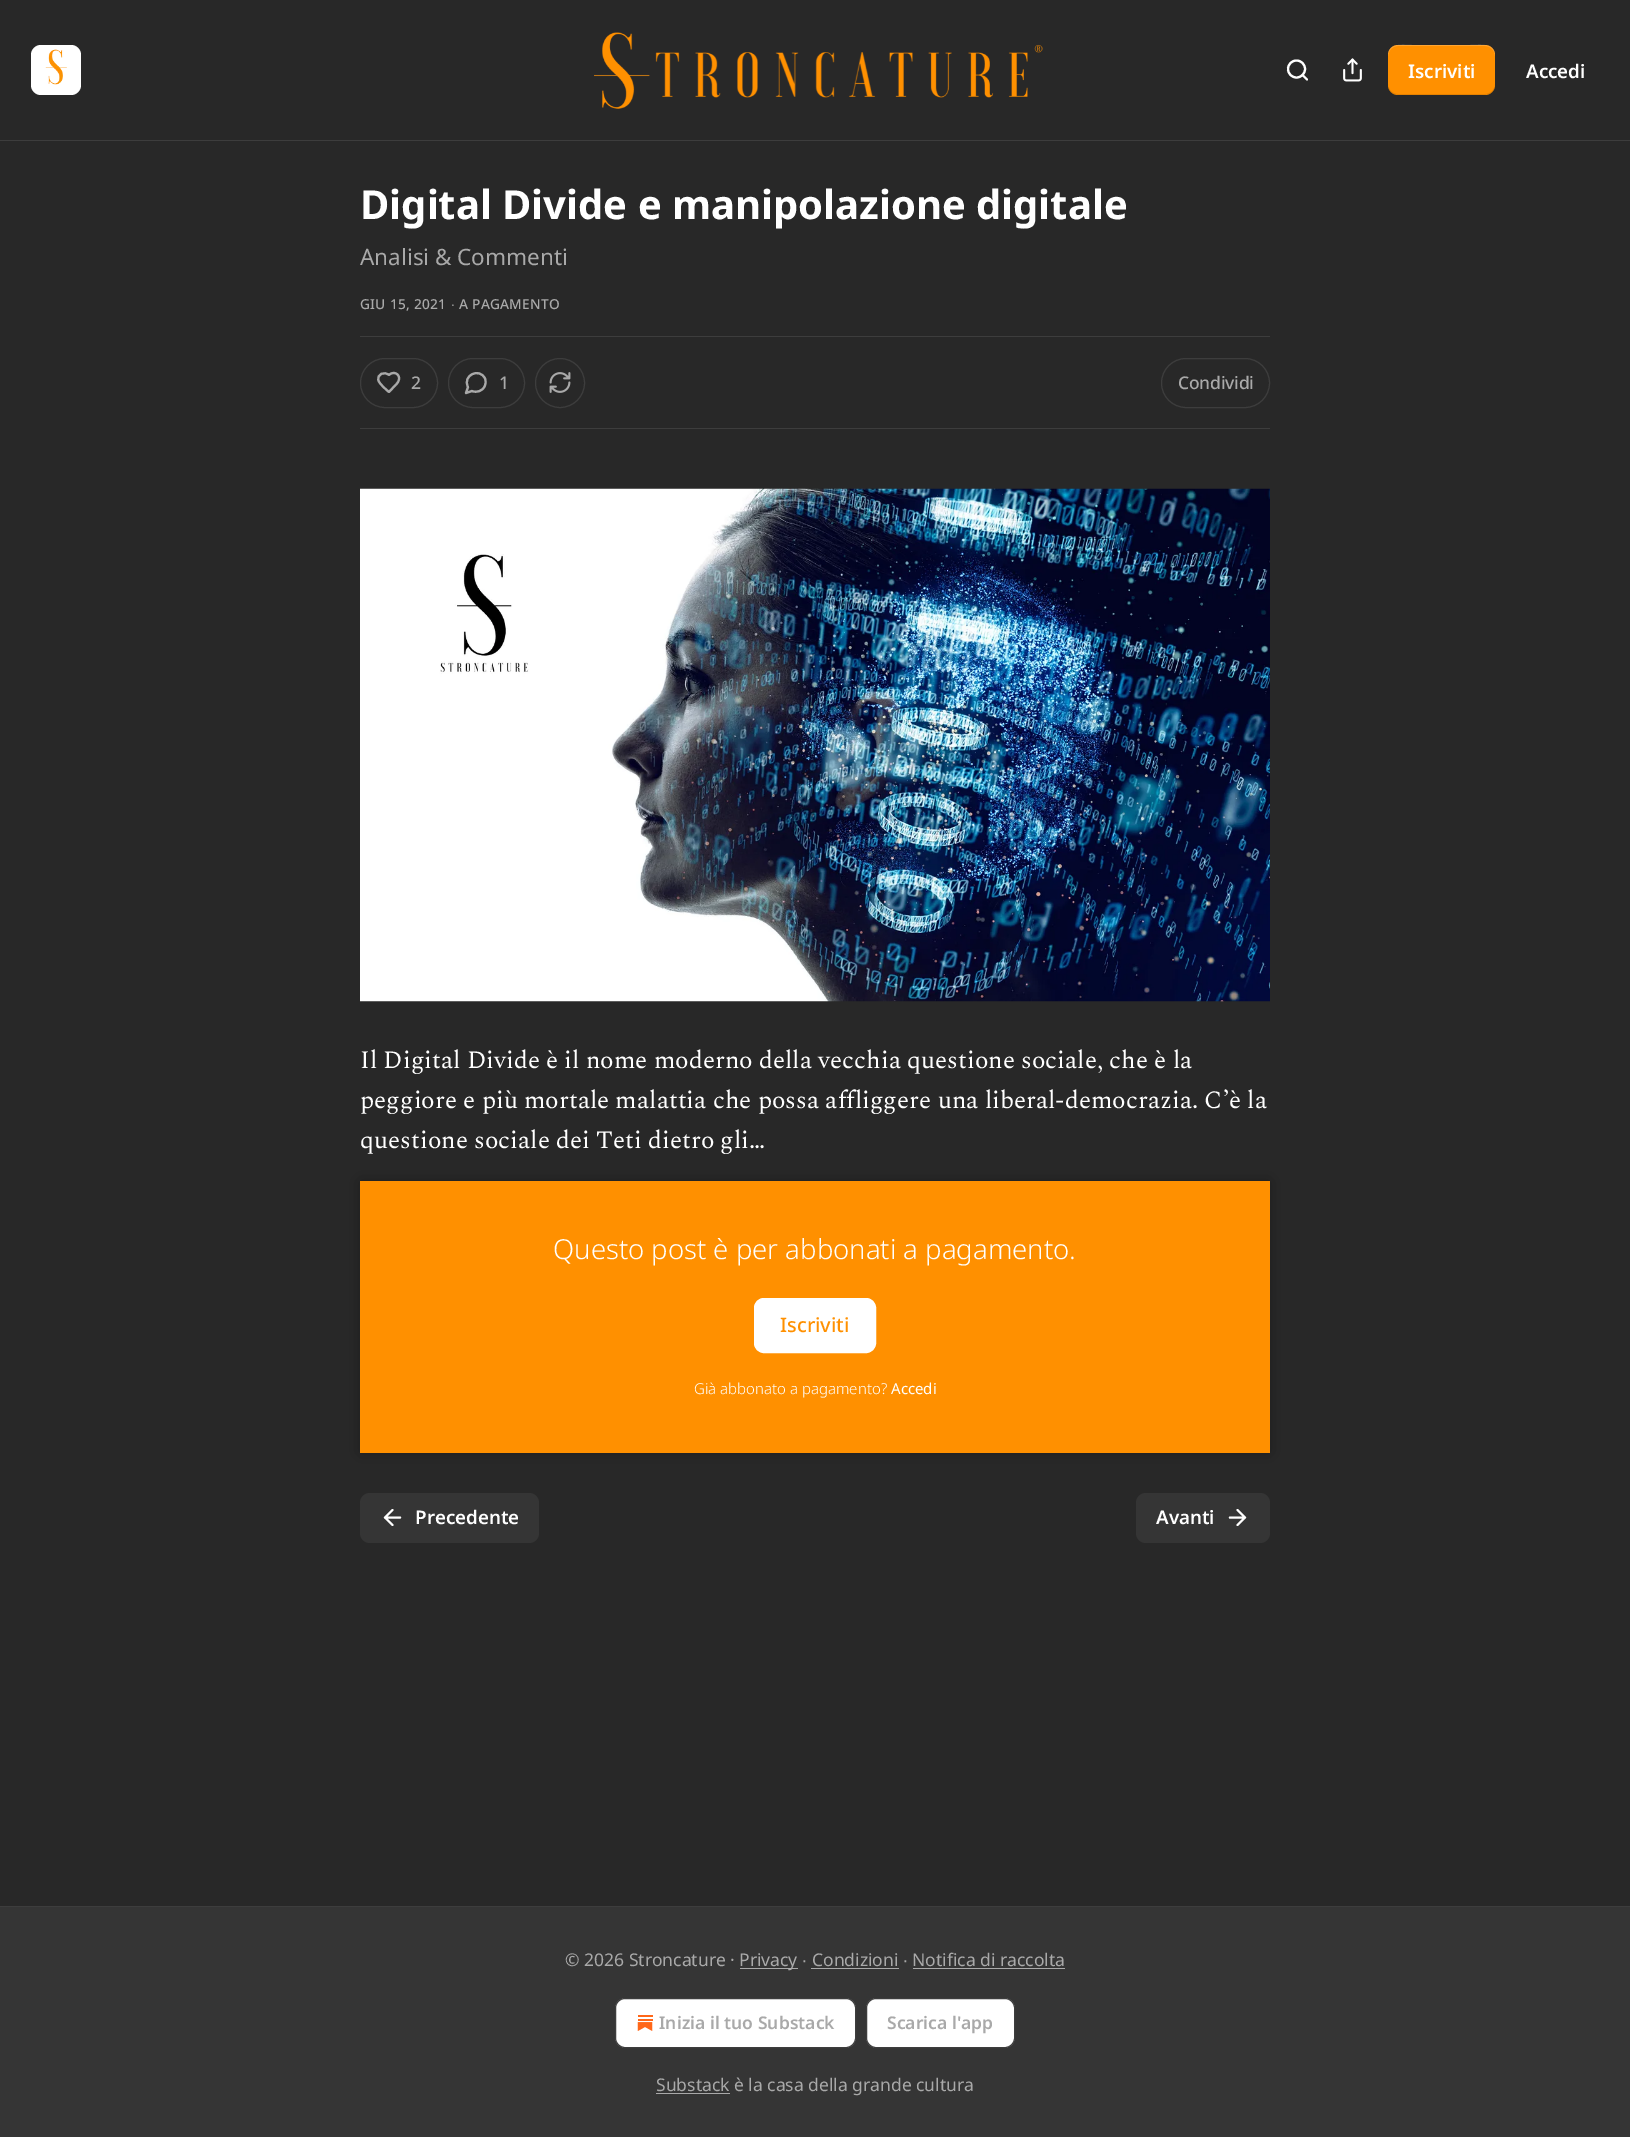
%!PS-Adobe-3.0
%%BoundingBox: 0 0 1630 2137
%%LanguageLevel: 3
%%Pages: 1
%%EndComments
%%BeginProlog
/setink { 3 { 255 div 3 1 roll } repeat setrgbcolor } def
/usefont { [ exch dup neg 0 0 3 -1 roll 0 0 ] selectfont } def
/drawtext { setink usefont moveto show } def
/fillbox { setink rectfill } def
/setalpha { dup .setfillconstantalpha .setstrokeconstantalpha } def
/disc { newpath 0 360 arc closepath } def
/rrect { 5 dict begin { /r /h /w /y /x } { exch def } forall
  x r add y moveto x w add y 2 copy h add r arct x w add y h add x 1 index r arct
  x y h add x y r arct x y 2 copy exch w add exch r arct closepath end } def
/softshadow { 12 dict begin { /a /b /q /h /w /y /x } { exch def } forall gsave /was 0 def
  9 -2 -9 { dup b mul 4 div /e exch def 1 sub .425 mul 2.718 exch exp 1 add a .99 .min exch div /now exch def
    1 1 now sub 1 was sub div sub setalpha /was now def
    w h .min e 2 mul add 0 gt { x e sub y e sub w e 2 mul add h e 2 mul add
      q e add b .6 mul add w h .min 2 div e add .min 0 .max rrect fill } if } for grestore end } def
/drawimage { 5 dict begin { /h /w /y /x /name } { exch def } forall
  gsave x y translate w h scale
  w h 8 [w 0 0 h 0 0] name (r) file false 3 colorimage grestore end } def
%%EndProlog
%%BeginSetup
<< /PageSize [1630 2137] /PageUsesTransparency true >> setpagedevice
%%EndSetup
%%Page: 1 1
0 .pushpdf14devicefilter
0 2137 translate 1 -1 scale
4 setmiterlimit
0 0 1630 2137 40 40 40 fillbox
0 140 1630 1 61 61 61 fillbox
255 255 255 setink
31 45 50 50 10 rrect fill
(assets/img1.rgb) 45 49 22 36 drawimage
(assets/img2.rgb) 594 32 449 77 drawimage
2.1 setlinewidth
1296.5 69 8.5 disc stroke
1 setlinecap
1 setlinejoin
1307 79.5 moveto 1302.5 75 lineto stroke
(assets/img3.rgb) 1343 58 19 24 drawimage
255 144 0 setink
1388 45 107 50 10 rrect fill
0.1 setalpha
0 0 0 setink
1388 84 moveto 1388 98 1403 95 1412 95 curveto 1470 95 lineto 1480 95 1495 98 1495 84 curveto 1495 89 1491 94 1485 94 curveto 1398 94 lineto 1392 94 1388 89 1388 84 curveto closepath fill
0.2 setalpha
255 255 255 setink
1398 46 moveto 1485 46 lineto 1491 46 1495 51 1495 56 curveto 1495 42 1480 45 1470 45 curveto 1412 45 lineto 1403 45 1388 42 1388 56 curveto 1388 51 1392 46 1398 46 curveto closepath fill
1 setalpha
(Iscriviti) 1408 78 /NotoSans-SemiBold 18.75 255 255 255 drawtext
(Accedi) 1526 78 /NotoSans-SemiBold 18.75 255 255 255 drawtext
(Digital Divide e manipolazione digitale) 360 219 /NotoSans-Bold 40 255 255 255 drawtext
(Analisi & Commenti) 360 265 /NotoSans-Regular 22.5 169 169 169 drawtext
/NotoSans-Medium 13.75 usefont
360 309 moveto 0.25 0 (GIU 15, 2021) ashow
/LiberationSans-Regular 13.75 usefont
451 309 moveto 0.25 0 (∙) ashow
/NotoSans-Medium 13.75 usefont
459 309 moveto 0.25 0 (A PAGAMENTO) ashow
360 336 910 1 61 61 61 fillbox
360 428 910 1 61 61 61 fillbox
1 setlinewidth
0 setlinecap
0 setlinejoin
360.5 358.5 77 49 24.5 rrect stroke
169 169 169 setink
2.1 setlinewidth
1 setlinecap
1 setlinejoin
396 384.5 moveto 404 377 395 369 389 375 curveto 384.5 371 376.5 374 378.5 380.5 curveto 379.5 384 386 389.5 389 392 curveto closepath stroke
/NotoSans-Medium 17.5 usefont
411 389 moveto -0.25 0 (2) ashow
61 61 61 setink
1 setlinewidth
0 setlinecap
0 setlinejoin
448.5 358.5 76 49 24.5 rrect stroke
169 169 169 setink
2.1 setlinewidth
1 setlinecap
1 setlinejoin
472 391 moveto 476.5 393 482.5 391 484.5 386.5 curveto 486 384 486 381 485 378.5 curveto 479.5 367 462 375.5 468 387 curveto 466 393 lineto closepath stroke
499 389 moveto -0.25 0 (1) ashow
61 61 61 setink
1 setlinewidth
0 setlinecap
0 setlinejoin
560 383 24.5 disc stroke
(assets/img4.rgb) 549 372 22 21 drawimage
1161.5 358.5 108 49 24.5 rrect stroke
169 169 169 setink
1178 389 moveto -0.25 0 (Condividi) ashow
(assets/img5.rgb) 360 488 910 514 drawimage
(Il Digital Divide è il nome moderno della vecchia questione sociale, che è la) 360 1068 /Spectral-Regular 25 255 255 255 drawtext
(peggiore e più mortale malattia che possa affliggere una liberal-democrazia. C’è la) 360 1108 /Spectral-Regular 25 255 255 255 drawtext
(questione sociale dei Teti dietro gli…) 360 1148 /Spectral-Regular 25 255 255 255 drawtext
360 1181 910 272 255 144 0 fillbox
255 255 255 setink
754.5 1298.5 121 54 9.5 rrect gsave fill grestore
stroke
gsave
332 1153 moveto 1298 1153 lineto 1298 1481 lineto 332 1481 lineto closepath 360 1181 moveto 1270 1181 lineto 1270 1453 lineto 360 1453 lineto closepath eoclip newpath
0 0 0 setink
360 1181 910 272 0 9 0.25 softshadow
grestore
(Questo post è per abbonati a pagamento.) 553 1259 /NotoSans-Light 27.5 255 255 255 drawtext
(Iscriviti) 780 1332 /NotoSans-Medium 20 255 144 0 drawtext
(Già abbonato a pagamento?) 694 1394 /NotoSans-Light 15 255 255 255 drawtext
(Accedi) 891 1394 /NotoSans-Regular 15 255 255 255 drawtext
53 53 53 setink
360 1493 179 50 10 rrect fill
255 255 255 setink
2.1 setlinewidth
1 setlinecap
1 setlinejoin
392.5 1525 moveto 385 1517.5 lineto 392.5 1510 lineto 400 1517.5 moveto 385 1517.5 lineto stroke
(Precedente) 415 1524 /NotoSans-SemiBold 18.75 255 255 255 drawtext
53 53 53 setink
1136 1493 134 50 10 rrect fill
(Avanti) 1156 1524 /NotoSans-SemiBold 18.75 255 255 255 drawtext
1230 1517.5 moveto 1245 1517.5 lineto 1237.5 1510 moveto 1245 1517.5 lineto 1237.5 1525 lineto stroke
0 1907 1630 230 53 53 53 fillbox
0 1906 1630 1 61 61 61 fillbox
(© 2026 Stroncature ·) 565 1966 /NotoSans-Regular 17.5 169 169 169 drawtext
740 1968 58 1 169 169 169 fillbox
(Privacy) 739 1966 /NotoSans-Regular 17.5 169 169 169 drawtext
(∙) 802 1966 /LiberationSans-Regular 17.5 169 169 169 drawtext
(Condizioni) 812 1966 /NotoSans-Regular 17.5 169 169 169 drawtext
811 1968 88 1 169 169 169 fillbox
(∙) 903 1966 /LiberationSans-Regular 17.5 169 169 169 drawtext
(Notifica di raccolta) 912 1966 /NotoSans-Regular 17.5 169 169 169 drawtext
913 1968 152 1 169 169 169 fillbox
255 255 255 setink
615.5 1998.5 240 49 9.5 rrect gsave fill grestore
61 61 61 setink
1 setlinewidth
0 setlinecap
0 setlinejoin
stroke
(assets/img6.rgb) 637 2015 16 16 drawimage
(Inizia il tuo Substack) 659 2029 /NotoSans-SemiBold 17.5 169 169 169 drawtext
255 255 255 setink
866.5 1998.5 148 49 9.5 rrect gsave fill grestore
61 61 61 setink
stroke
(Scarica l'app) 887 2029 /NotoSans-SemiBold 17.5 169 169 169 drawtext
656 2093 74 1 169 169 169 fillbox
(Substack è la casa della grande cultura) 656 2091 /NotoSans-Regular 17.5 169 169 169 drawtext
.poppdf14devicefilter showpage
%%EOF
